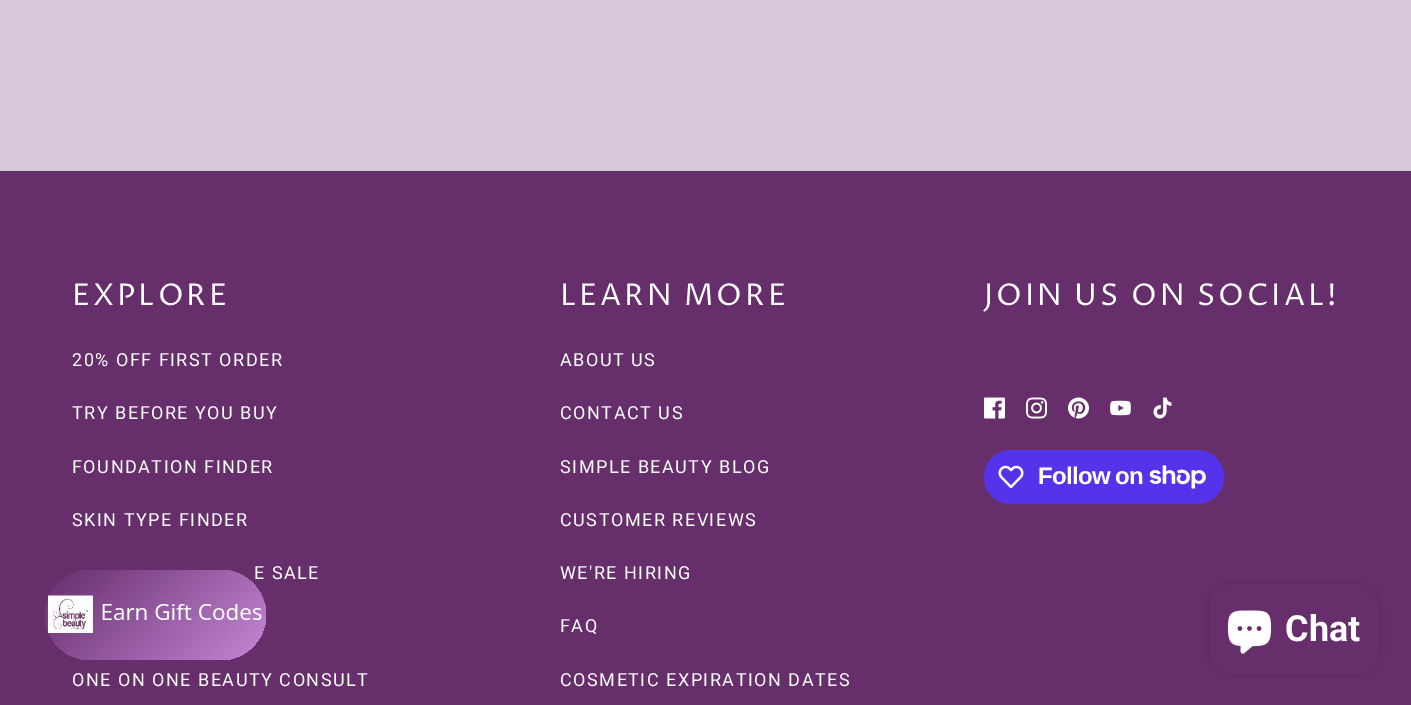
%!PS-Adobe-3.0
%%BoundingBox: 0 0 1411 705
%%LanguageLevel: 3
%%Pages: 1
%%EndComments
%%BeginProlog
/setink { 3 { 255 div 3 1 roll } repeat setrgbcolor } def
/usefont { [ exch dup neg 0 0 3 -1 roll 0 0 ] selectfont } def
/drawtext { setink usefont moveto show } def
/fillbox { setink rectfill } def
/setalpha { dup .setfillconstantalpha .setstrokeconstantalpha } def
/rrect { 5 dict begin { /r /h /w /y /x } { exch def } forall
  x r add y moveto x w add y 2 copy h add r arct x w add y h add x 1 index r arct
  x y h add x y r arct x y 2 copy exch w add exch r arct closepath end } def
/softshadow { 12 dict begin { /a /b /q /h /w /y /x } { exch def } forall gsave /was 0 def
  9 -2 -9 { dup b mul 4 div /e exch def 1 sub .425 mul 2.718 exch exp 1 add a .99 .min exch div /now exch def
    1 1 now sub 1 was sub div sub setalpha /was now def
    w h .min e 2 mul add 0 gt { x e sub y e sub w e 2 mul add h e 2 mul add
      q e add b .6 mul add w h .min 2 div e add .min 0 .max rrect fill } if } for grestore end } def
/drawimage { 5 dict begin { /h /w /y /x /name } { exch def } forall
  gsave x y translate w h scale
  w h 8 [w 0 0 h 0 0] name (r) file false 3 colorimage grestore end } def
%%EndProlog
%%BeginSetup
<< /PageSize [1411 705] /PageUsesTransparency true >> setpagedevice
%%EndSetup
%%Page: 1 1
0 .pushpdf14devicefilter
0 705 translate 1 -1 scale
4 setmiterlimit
0 0 1411 705 216 199 216 fillbox
0 171 1411 534 102 46 107 fillbox
/ProzaLibre-Regular 30 usefont
255 255 255 setink
72 305 moveto 3 0 (EXPLORE) ashow
/Roboto-Regular 18 usefont
72 366 moveto 1.5 0 (20% OFF FIRST ORDER) ashow
72 419 moveto 1.5 0 (TRY BEFORE YOU BUY) ashow
72 473 moveto 1.5 0 (FOUNDATION FINDER) ashow
72 526 moveto 1.5 0 (SKIN TYPE FINDER) ashow
254 579 moveto 1.5 0 (E SALE) ashow
72 686 moveto 1.5 0 (ONE ON ONE BEAUTY CONSULT) ashow
/ProzaLibre-Regular 30 usefont
560 305 moveto 3 0 (LEARN MORE) ashow
/Roboto-Regular 18 usefont
560 366 moveto 1.5 0 (ABOUT US) ashow
560 419 moveto 1.5 0 (CONTACT US) ashow
560 473 moveto 1.5 0 (SIMPLE BEAUTY BLOG) ashow
560 526 moveto 1.5 0 (CUSTOMER REVIEWS) ashow
560 579 moveto 1.5 0 (WE'RE HIRING) ashow
560 632 moveto 1.5 0 (FAQ) ashow
560 686 moveto 1.5 0 (COSMETIC EXPIRATION DATES) ashow
/ProzaLibre-Regular 30 usefont
984 305 moveto 3 0 (JOIN US ON SOCIAL!) ashow
(assets/img1.rgb) 984 397 21 22 drawimage
(assets/img2.rgb) 1026 397 21 22 drawimage
(assets/img3.rgb) 1068 397 21 22 drawimage
(assets/img4.rgb) 1110 400 21 16 drawimage
(assets/img5.rgb) 1153 397 19 22 drawimage
84 51 235 setink
984 450 240 54 27 rrect fill
(assets/img6.rgb) 998 465 26 24 drawimage
/LiberationSans-Bold 24 usefont
255 255 255 setink
1038 484 moveto -0.75 0 (Follow on) ashow
(assets/img7.rgb) 1149 465 57 24 drawimage
gsave 45 570 221 90 45 rrect clip newpath
<< /ShadingType 2 /ColorSpace /DeviceRGB /Coords [78 537 233 693] /Extend [true true] /Function << /FunctionType 2 /Domain [0 1] /C0 [0.4 0.18 0.42] /C1 [0.769 0.529 0.839] /N 1 >> >> shfill grestore
(assets/img8.rgb) 48 595 214 38 drawimage
0 0 0 setink
1209 584 170 90 24 4 0.15 softshadow
102 46 107 setink
1209 584 170 90 24 rrect fill
(assets/img9.rgb) 1227 610 45 44 drawimage
(Chat) 1285 641 /Roboto-Bold 36 255 255 255 drawtext
.poppdf14devicefilter showpage
%%EOF
